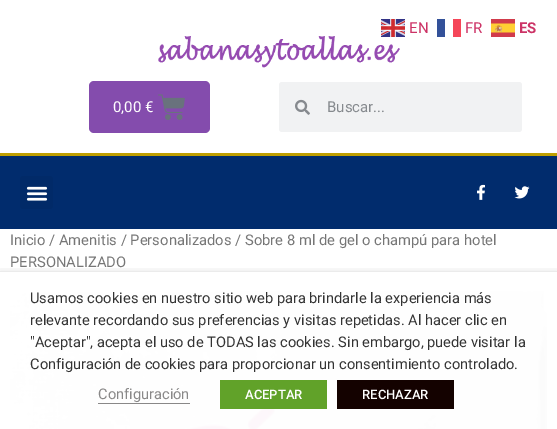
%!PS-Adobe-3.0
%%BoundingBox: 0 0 557 429
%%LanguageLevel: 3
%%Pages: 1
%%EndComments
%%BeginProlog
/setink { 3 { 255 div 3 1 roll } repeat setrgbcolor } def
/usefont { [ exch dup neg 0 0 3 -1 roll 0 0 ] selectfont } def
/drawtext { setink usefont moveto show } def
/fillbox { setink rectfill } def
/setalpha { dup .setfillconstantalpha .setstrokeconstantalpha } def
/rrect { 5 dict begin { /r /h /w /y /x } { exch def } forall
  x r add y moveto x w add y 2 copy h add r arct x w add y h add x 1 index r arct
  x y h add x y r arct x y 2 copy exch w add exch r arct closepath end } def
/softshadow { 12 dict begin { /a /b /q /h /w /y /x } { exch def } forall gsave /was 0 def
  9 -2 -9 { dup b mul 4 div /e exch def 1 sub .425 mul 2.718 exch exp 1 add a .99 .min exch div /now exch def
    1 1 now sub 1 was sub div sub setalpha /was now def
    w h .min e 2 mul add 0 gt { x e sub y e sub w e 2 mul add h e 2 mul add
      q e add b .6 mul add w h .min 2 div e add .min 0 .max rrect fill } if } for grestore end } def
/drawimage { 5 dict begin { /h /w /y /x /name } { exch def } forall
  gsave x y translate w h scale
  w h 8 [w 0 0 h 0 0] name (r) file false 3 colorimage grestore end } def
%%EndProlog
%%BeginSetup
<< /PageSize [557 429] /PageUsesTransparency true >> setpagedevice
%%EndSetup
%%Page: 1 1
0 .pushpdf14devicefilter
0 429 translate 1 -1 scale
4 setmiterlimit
0 0 557 429 255 255 255 fillbox
(assets/img3.rgb) 158 36 242 32 drawimage
(assets/img1.rgb) 381 19 24 18 drawimage
(EN) 409 33 /Roboto-Regular 15 204 51 102 drawtext
(FR) 465 33 /Roboto-Regular 15 204 51 102 drawtext
437 19 8 18 51 81 153 fillbox
453 19 8 18 245 70 89 fillbox
(assets/img2.rgb) 491 19 24 18 drawimage
(ES) 519 33 /Roboto-Bold 15 204 51 102 drawtext
132 76 173 setink
89 81 121 52 5 rrect fill
(0,00 €) 113 112 /Roboto-Regular 15 255 255 255 drawtext
(assets/img4.rgb) 158 94 27 26 drawimage
241 242 243 setink
279 82 243 50 3 rrect fill
(assets/img5.rgb) 295 99 15 16 drawimage
(Buscar...) 327 112 /Roboto-Regular 15 134 138 142 drawtext
0 156 557 73 1 44 109 fillbox
0 153 557 3 191 159 0 fillbox
1 42 104 setink
20 176 33 33 3 rrect fill
(assets/img6.rgb) 26 186 22 15 drawimage
(assets/img7.rgb) 477 184 8 16 drawimage
(assets/img8.rgb) 514 186 16 13 drawimage
(Inicio / Amenitis / Personalizados / Sobre 8 ml de gel o champú para hotel) 10 245 /Roboto-Regular 14.75 118 118 118 drawtext
(PERSONALIZADO) 10 267 /Roboto-Regular 14.75 118 118 118 drawtext
(assets/img9.rgb) 10 289 537 140 drawimage
gsave
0 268 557 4 rectclip
0 0 0 setink
0 277 557 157 0 5 0.5 softshadow
grestore
(Usamos cookies en nuestro sitio web para brindarle la experiencia más) 30 303 /Roboto-Regular 14.65 51 51 51 drawtext
(relevante recordando sus preferencias y visitas repetidas. Al hacer clic en) 30 325 /Roboto-Regular 14.65 51 51 51 drawtext
("Aceptar", acepta el uso de TODAS las cookies. Sin embargo, puede visitar la) 30 347 /Roboto-Regular 14.65 51 51 51 drawtext
(Configuración de cookies para proporcionar un consentimiento controlado.) 30 369 /Roboto-Regular 14.65 51 51 51 drawtext
(Configuración) 98 399 /Roboto-Regular 14.65 137 136 136 drawtext
98 403 92 1 137 136 136 fillbox
220 380 107 29 97 162 41 fillbox
(ACEPTAR) 245 399 /Roboto-Medium 13 255 255 255 drawtext
337 380 117 29 20 2 0 fillbox
(RECHAZAR) 362 399 /Roboto-Medium 13 255 255 255 drawtext
.poppdf14devicefilter showpage
%%EOF
